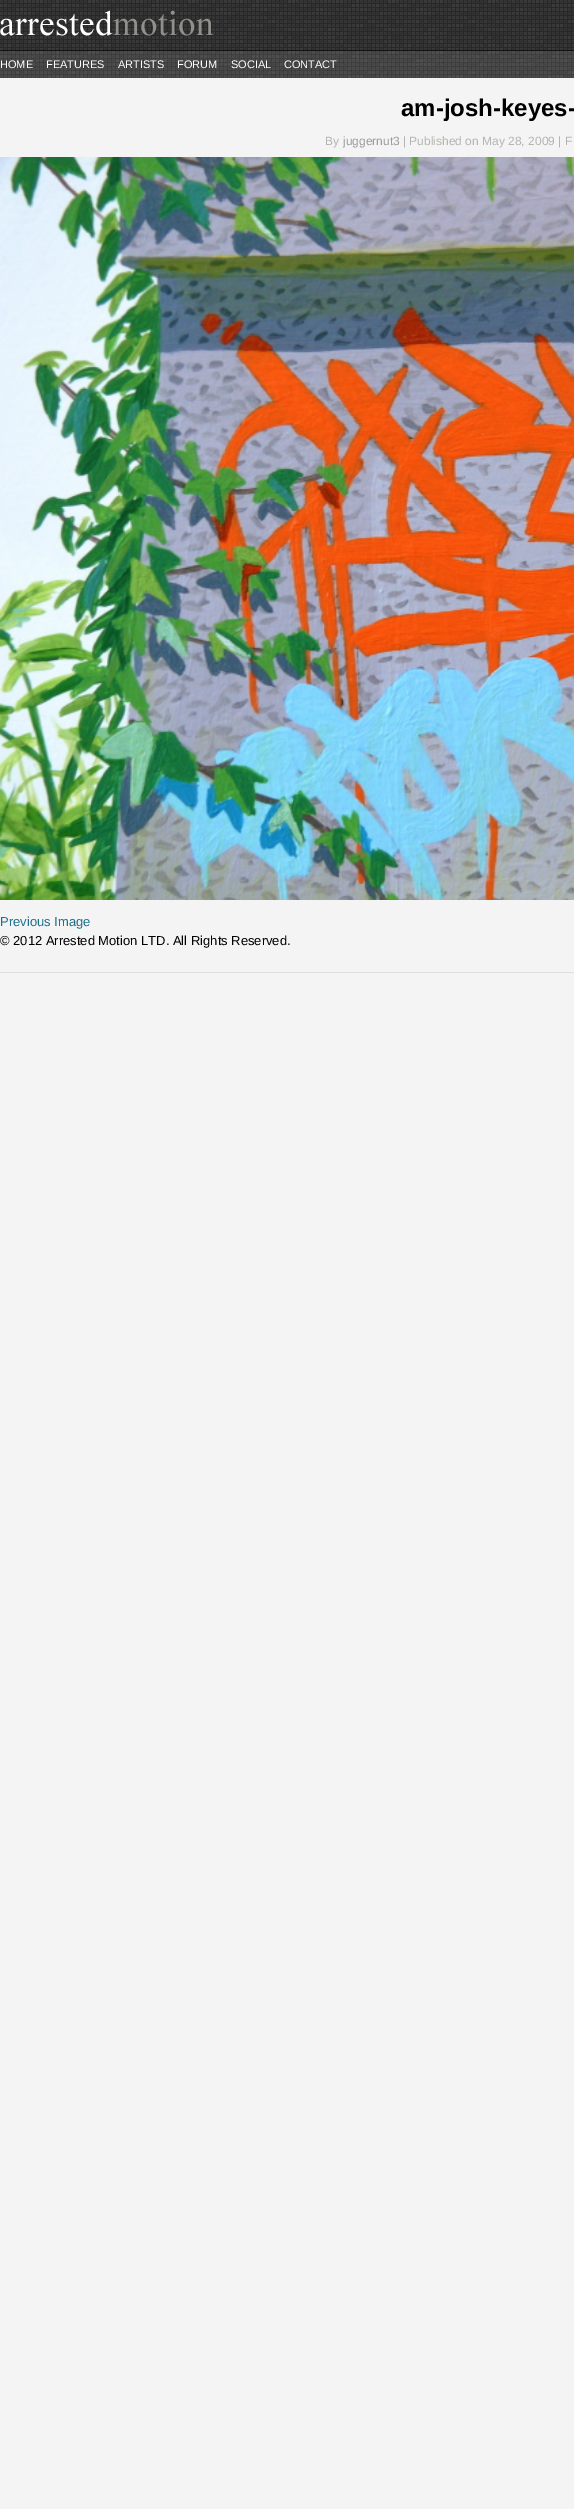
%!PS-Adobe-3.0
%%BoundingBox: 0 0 574 2509
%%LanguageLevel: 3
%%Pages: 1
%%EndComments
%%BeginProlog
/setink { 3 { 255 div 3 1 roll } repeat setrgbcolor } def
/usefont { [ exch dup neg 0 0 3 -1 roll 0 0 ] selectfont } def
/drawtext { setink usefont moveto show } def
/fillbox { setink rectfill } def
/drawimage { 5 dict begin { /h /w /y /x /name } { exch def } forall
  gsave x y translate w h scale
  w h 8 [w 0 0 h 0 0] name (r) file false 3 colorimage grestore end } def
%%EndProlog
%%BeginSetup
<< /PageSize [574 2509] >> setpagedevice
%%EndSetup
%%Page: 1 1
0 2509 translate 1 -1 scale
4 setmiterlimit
0 0 574 2509 244 244 244 fillbox
(assets/img1.rgb) 0 0 574 50 drawimage
(assets/img2.rgb) 0 10 214 26 drawimage
(assets/img3.rgb) 0 51 574 27 drawimage
0 50 574 1 17 17 17 fillbox
(HOME) 0 68 /LiberationSans-Regular 11 255 255 255 drawtext
(FEATURES) 46 68 /LiberationSans-Regular 11 255 255 255 drawtext
(ARTISTS) 118 68 /LiberationSans-Regular 11 255 255 255 drawtext
(FORUM) 177 68 /LiberationSans-Regular 11 255 255 255 drawtext
(SOCIAL) 231 68 /LiberationSans-Regular 11 255 255 255 drawtext
(CONTACT) 284 68 /LiberationSans-Regular 11 255 255 255 drawtext
(am-josh-keyes-) 401 116 /LiberationSans-Bold 24 0 0 0 drawtext
(By) 325 145 /LiberationSans-Regular 12 180 181 176 drawtext
(juggernut3) 343 145 /LiberationSans-Regular 12 155 155 155 drawtext
(| Published on May 28, 2009 | F) 403 145 /LiberationSans-Regular 12 180 181 176 drawtext
(assets/img4.rgb) 0 157 574 743 drawimage
(Previous Image) 0 926 /LiberationSans-Regular 13 29 113 143 drawtext
(© 2012 Arrested Motion LTD. All Rights Reserved.) 0 945 /LiberationSans-Regular 13 0 0 0 drawtext
0 972 574 1 222 222 222 fillbox
showpage
%%EOF
